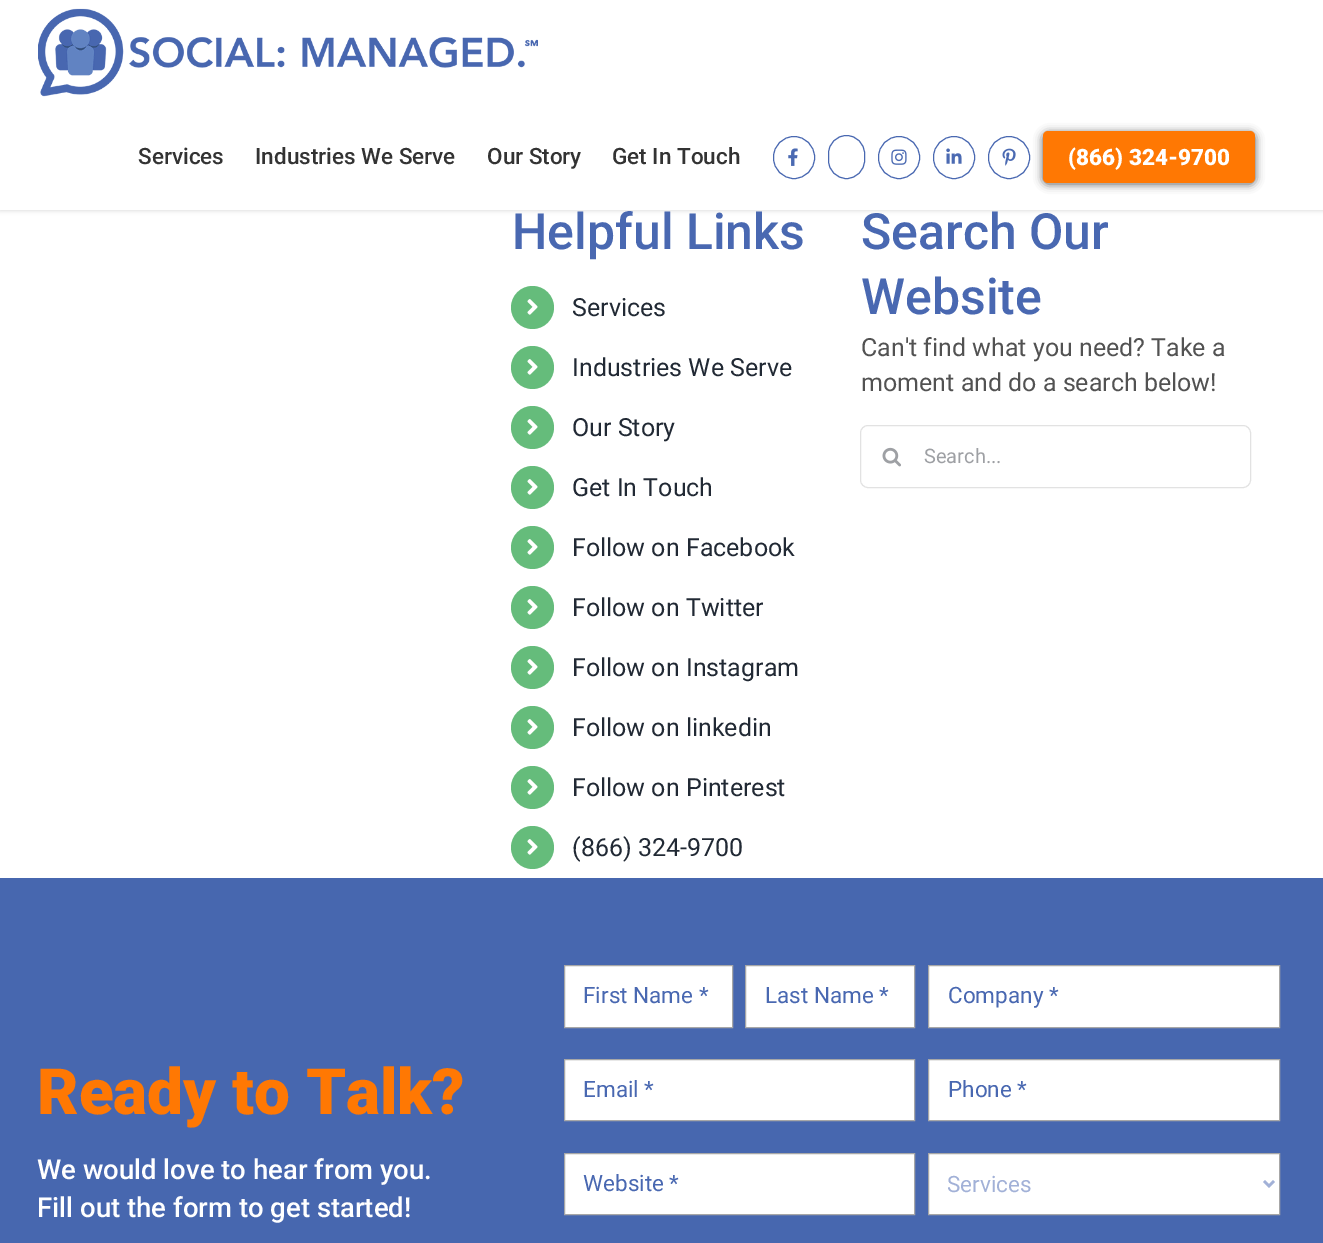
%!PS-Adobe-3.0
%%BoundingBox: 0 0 1323 1243
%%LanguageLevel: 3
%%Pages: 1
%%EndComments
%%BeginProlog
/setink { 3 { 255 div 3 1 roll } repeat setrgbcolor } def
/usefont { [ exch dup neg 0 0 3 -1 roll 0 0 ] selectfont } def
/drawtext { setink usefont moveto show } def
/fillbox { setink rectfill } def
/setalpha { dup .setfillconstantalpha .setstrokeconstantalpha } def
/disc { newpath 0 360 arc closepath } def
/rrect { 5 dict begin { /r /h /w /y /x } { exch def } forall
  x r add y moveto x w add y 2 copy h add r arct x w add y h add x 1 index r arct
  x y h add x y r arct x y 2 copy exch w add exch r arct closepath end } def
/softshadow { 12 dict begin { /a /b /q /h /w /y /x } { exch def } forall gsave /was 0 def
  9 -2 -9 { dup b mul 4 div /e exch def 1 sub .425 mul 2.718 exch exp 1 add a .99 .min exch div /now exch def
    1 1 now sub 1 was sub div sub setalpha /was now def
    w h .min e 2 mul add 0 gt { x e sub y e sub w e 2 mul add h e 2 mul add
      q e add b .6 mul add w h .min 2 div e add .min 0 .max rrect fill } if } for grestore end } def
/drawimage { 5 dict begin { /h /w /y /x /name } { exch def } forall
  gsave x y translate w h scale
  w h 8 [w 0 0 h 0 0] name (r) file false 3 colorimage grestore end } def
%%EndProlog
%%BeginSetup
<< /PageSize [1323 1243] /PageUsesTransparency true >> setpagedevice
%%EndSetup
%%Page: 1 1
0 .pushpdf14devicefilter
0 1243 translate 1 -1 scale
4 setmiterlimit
0 0 1323 1243 255 255 255 fillbox
0 0 0 setink
0 1 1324 210 0 2 0.12 softshadow
0 0 1323 210 255 255 255 fillbox
(assets/img1.rgb) 38 8 500 89 drawimage
(Services) 138 164 /Roboto-Medium 22.5 51 51 51 drawtext
(Industries We Serve) 255 164 /Roboto-Medium 22.5 51 51 51 drawtext
(Our Story) 487 164 /Roboto-Medium 22.5 51 51 51 drawtext
(Get In Touch) 612 164 /Roboto-Medium 22.5 51 51 51 drawtext
73 104 177 setink
773.5 136.5 41 42 20.5 rrect stroke
(assets/img2.rgb) 788 148 10 18 drawimage
828.5 135.5 36 43 18 rrect stroke
878.5 136.5 41 42 20.5 rrect stroke
(assets/img3.rgb) 891 149 16 16 drawimage
933.5 136.5 41 42 20.5 rrect stroke
(assets/img4.rgb) 946 148 16 16 drawimage
988.5 136.5 41 42 20.5 rrect stroke
(assets/img5.rgb) 1002 148 14 18 drawimage
86 85 85 setink
1043 133 212 51 5 4.5 1 softshadow
255 120 3 setink
1043 131 212 52 5 rrect fill
(\(866\) 324-9700) 1068 165 /Roboto-Black 22.5 255 255 255 drawtext
(Helpful Links) 512 249 /Roboto-Medium 50 73 104 177 drawtext
101 188 123 setink
532.5 307.5 21.5 disc fill
(assets/img6.rgb) 527 299 11 16 drawimage
(Services) 572 316 /Roboto-Regular 25 33 41 52 drawtext
101 188 123 setink
532.5 367.5 21.5 disc fill
(assets/img6.rgb) 527 359 11 16 drawimage
(Industries We Serve) 572 376 /Roboto-Regular 25 33 41 52 drawtext
101 188 123 setink
532.5 427.5 21.5 disc fill
(assets/img6.rgb) 527 419 11 16 drawimage
(Our Story) 572 436 /Roboto-Regular 25 33 41 52 drawtext
101 188 123 setink
532.5 487.5 21.5 disc fill
(assets/img6.rgb) 527 479 11 16 drawimage
(Get In Touch) 572 496 /Roboto-Regular 25 33 41 52 drawtext
101 188 123 setink
532.5 547.5 21.5 disc fill
(assets/img6.rgb) 527 539 11 16 drawimage
(Follow on Facebook) 572 556 /Roboto-Regular 25 33 41 52 drawtext
101 188 123 setink
532.5 607.5 21.5 disc fill
(assets/img6.rgb) 527 599 11 16 drawimage
(Follow on Twitter) 572 616 /Roboto-Regular 25 33 41 52 drawtext
101 188 123 setink
532.5 667.5 21.5 disc fill
(assets/img6.rgb) 527 659 11 16 drawimage
(Follow on Instagram) 572 676 /Roboto-Regular 25 33 41 52 drawtext
101 188 123 setink
532.5 727.5 21.5 disc fill
(assets/img6.rgb) 527 719 11 16 drawimage
(Follow on linkedin) 572 736 /Roboto-Regular 25 33 41 52 drawtext
101 188 123 setink
532.5 787.5 21.5 disc fill
(assets/img6.rgb) 527 779 11 16 drawimage
(Follow on Pinterest) 572 796 /Roboto-Regular 25 33 41 52 drawtext
101 188 123 setink
532.5 847.5 21.5 disc fill
(assets/img6.rgb) 527 839 11 16 drawimage
(\(866\) 324-9700) 572 856 /Roboto-Regular 25 33 41 52 drawtext
(Search Our) 861 249 /Roboto-Medium 50 73 104 177 drawtext
(Website) 861 314 /Roboto-Medium 50 73 104 177 drawtext
(Can't find what you need? Take a) 861 356 /Roboto-Regular 25 82 82 82 drawtext
(moment and do a search below!) 861 391 /Roboto-Regular 25 82 82 82 drawtext
226 226 226 setink
860.5 425.5 390 62 7.5 rrect stroke
(assets/img7.rgb) 882 447 19 20 drawimage
(Search...) 924 463 /Roboto-Regular 20 158 160 164 drawtext
0 878 1323 365 71 103 175 fillbox
(Ready to Talk?) 37 1114 /Roboto-Black 63.75 255 120 3 drawtext
(We would love to hear from you.) 37 1179 /Roboto-Medium 27.5 255 255 255 drawtext
(Fill out the form to get started!) 37 1217 /Roboto-Medium 27.5 255 255 255 drawtext
564.5 965.5 moveto 732.5 965.5 lineto 732.5 1027.5 lineto 564.5 1027.5 lineto closepath gsave fill grestore
167 167 167 setink
stroke
(First Name *) 583 1003 /Roboto-Regular 22.5 73 104 177 drawtext
255 255 255 setink
745.5 965.5 moveto 914.5 965.5 lineto 914.5 1027.5 lineto 745.5 1027.5 lineto closepath gsave fill grestore
167 167 167 setink
stroke
(Last Name *) 765 1003 /Roboto-Regular 22.5 73 104 177 drawtext
255 255 255 setink
928.5 965.5 moveto 1279.5 965.5 lineto 1279.5 1027.5 lineto 928.5 1027.5 lineto closepath gsave fill grestore
167 167 167 setink
stroke
(Company *) 948 1003 /Roboto-Regular 22.5 73 104 177 drawtext
255 255 255 setink
564.5 1059.5 moveto 914.5 1059.5 lineto 914.5 1120.5 lineto 564.5 1120.5 lineto closepath gsave fill grestore
167 167 167 setink
stroke
(Email *) 583 1097 /Roboto-Regular 22.5 73 104 177 drawtext
255 255 255 setink
564.5 1153.5 moveto 914.5 1153.5 lineto 914.5 1214.5 lineto 564.5 1214.5 lineto closepath gsave fill grestore
167 167 167 setink
stroke
(Website *) 583 1191 /Roboto-Regular 22.5 73 104 177 drawtext
255 255 255 setink
928.5 1059.5 moveto 1279.5 1059.5 lineto 1279.5 1120.5 lineto 928.5 1120.5 lineto closepath gsave fill grestore
167 167 167 setink
stroke
(Phone *) 948 1097 /Roboto-Regular 22.5 73 104 177 drawtext
255 255 255 setink
928.5 1153.5 moveto 1279.5 1153.5 lineto 1279.5 1214.5 lineto 928.5 1214.5 lineto closepath gsave fill grestore
167 167 167 setink
stroke
162 177 215 setink
2.5 setlinewidth
1264 1181 moveto 1269 1186 lineto 1274 1181 lineto stroke
(Services) 947 1192 /Roboto-Regular 22.5 162 177 215 drawtext
.poppdf14devicefilter showpage
%%EOF
